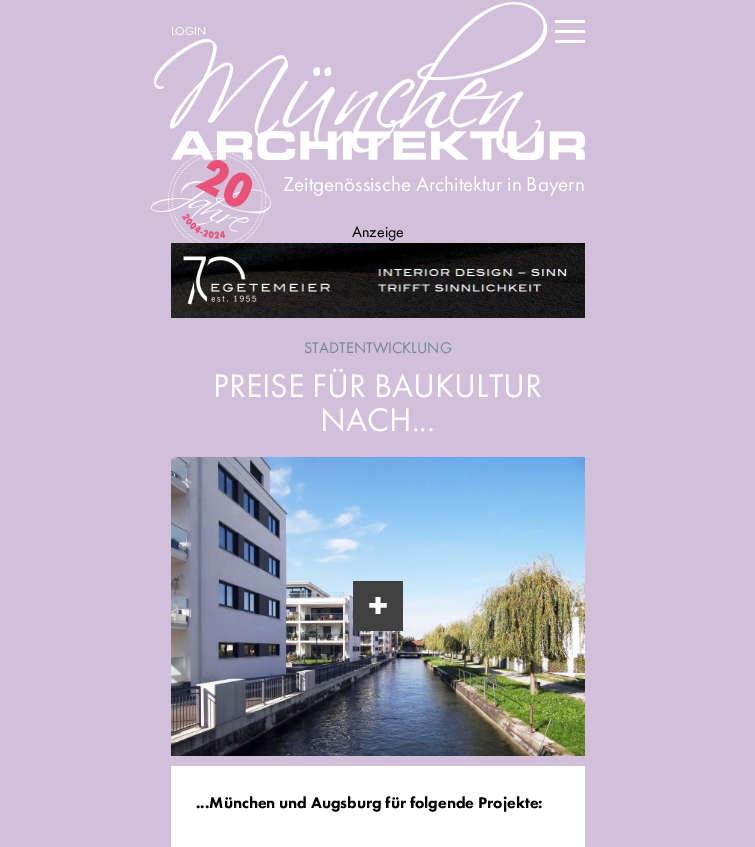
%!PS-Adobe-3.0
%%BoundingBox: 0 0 755 847
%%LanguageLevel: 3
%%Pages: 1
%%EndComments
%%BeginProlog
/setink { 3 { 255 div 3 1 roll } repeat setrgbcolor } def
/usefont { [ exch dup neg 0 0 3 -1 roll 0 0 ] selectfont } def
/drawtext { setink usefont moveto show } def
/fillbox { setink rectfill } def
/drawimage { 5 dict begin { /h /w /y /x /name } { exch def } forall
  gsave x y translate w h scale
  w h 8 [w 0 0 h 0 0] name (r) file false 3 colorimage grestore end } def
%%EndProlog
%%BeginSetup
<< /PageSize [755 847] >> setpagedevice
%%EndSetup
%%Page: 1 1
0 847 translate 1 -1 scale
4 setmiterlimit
0 0 755 847 210 191 217 fillbox
(assets/img1.rgb) 153 2 432 158 drawimage
(LOGIN) 171 35 /FuturaPT-Regular 12 255 255 255 drawtext
555 20 30 3 255 255 255 fillbox
555 30 30 3 255 255 255 fillbox
555 40 30 3 255 255 255 fillbox
(assets/img2.rgb) 151 150 120 93 drawimage
(Zeitgenössische Architektur in Bayern) 283 191 /FuturaPT-Regular 21 255 255 255 drawtext
(Anzeige) 352 237 /FuturaPT-Regular 16 0 0 0 drawtext
(assets/img3.rgb) 171 243 414 75 drawimage
(STADTENTWICKLUNG) 304 353 /FuturaPT-Regular 16 115 138 153 drawtext
(PREISE FÜR BAUKULTUR) 213 397 /FuturaPT-Regular 34 255 255 255 drawtext
(NACH...) 320 431 /FuturaPT-Regular 34 255 255 255 drawtext
(assets/img4.rgb) 171 457 414 299 drawimage
353 581 50 50 65 65 65 fillbox
(+) 368 619 /FuturaPT-Black 40 255 255 255 drawtext
171 766 414 81 255 255 255 fillbox
(...München und Augsburg für folgende Projekte:) 196 808 /FuturaPT-Black 16 0 0 0 drawtext
showpage
%%EOF
